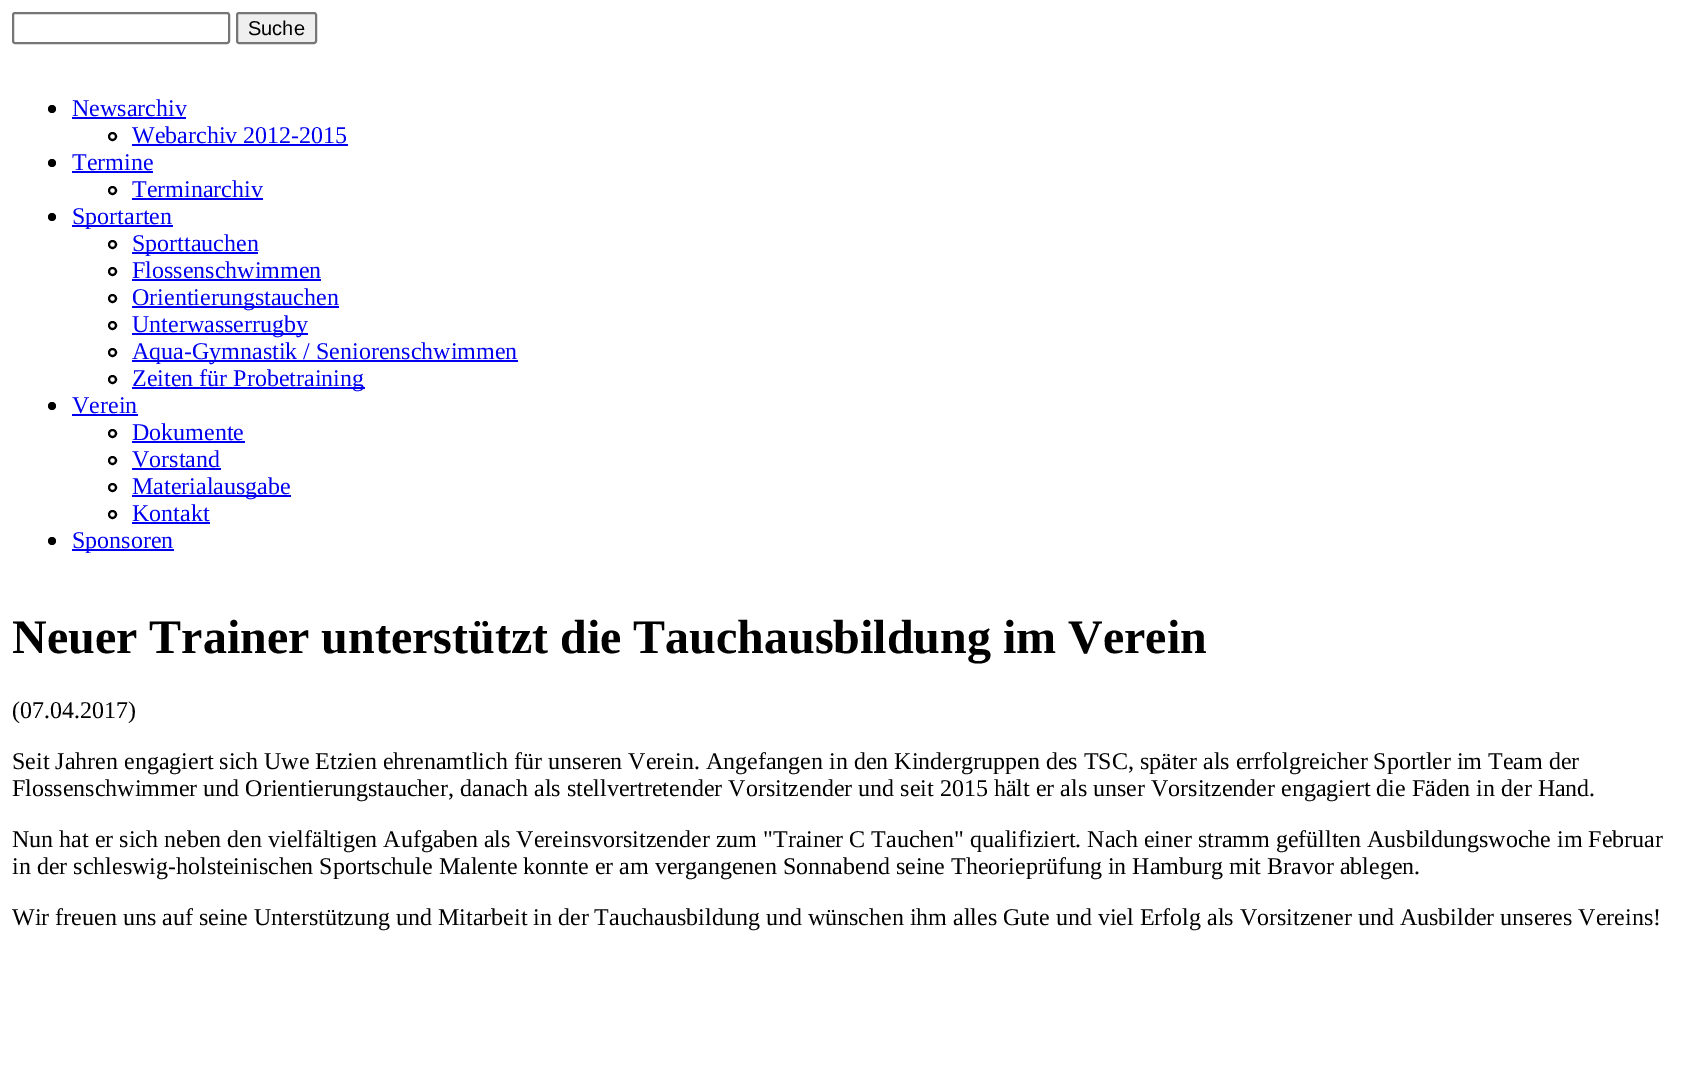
%!PS-Adobe-3.0
%%BoundingBox: 0 0 1694 1080
%%LanguageLevel: 3
%%Pages: 1
%%EndComments
%%BeginProlog
/setink { 3 { 255 div 3 1 roll } repeat setrgbcolor } def
/usefont { [ exch dup neg 0 0 3 -1 roll 0 0 ] selectfont } def
/drawtext { setink usefont moveto show } def
/fillbox { setink rectfill } def
/disc { newpath 0 360 arc closepath } def
/rrect { 5 dict begin { /r /h /w /y /x } { exch def } forall
  x r add y moveto x w add y 2 copy h add r arct x w add y h add x 1 index r arct
  x y h add x y r arct x y 2 copy exch w add exch r arct closepath end } def
%%EndProlog
%%BeginSetup
<< /PageSize [1694 1080] >> setpagedevice
%%EndSetup
%%Page: 1 1
0 1080 translate 1 -1 scale
4 setmiterlimit
0 0 1694 1080 255 255 255 fillbox
118 118 118 setink
2 setlinewidth
13 13 216 30 2 rrect stroke
239 239 239 setink
237 13 79 30 2 rrect gsave fill grestore
118 118 118 setink
stroke
(Suche) 248 35 /LiberationSans-Regular 20 0 0 0 drawtext
52 109 4 disc fill
(Newsarchiv) 72 116 /LiberationSerif-Regular 24 0 0 238 drawtext
72 117 114 2 0 0 238 fillbox
0 0 0 setink
112.5 136.5 3.5 disc stroke
(Webarchiv 2012-2015) 132 143 /LiberationSerif-Regular 24 0 0 238 drawtext
132 144 216 2 0 0 238 fillbox
0 0 0 setink
52 163 4 disc fill
(Termine) 72 170 /LiberationSerif-Regular 24 0 0 238 drawtext
72 171 81 2 0 0 238 fillbox
0 0 0 setink
112.5 190.5 3.5 disc stroke
(Terminarchiv) 132 197 /LiberationSerif-Regular 24 0 0 238 drawtext
132 198 131 2 0 0 238 fillbox
0 0 0 setink
52 217 4 disc fill
72 225 101 2 0 0 238 fillbox
(Sportarten) 72 224 /LiberationSerif-Regular 24 0 0 238 drawtext
0 0 0 setink
112.5 244.5 3.5 disc stroke
132 252 126 2 0 0 238 fillbox
(Sporttauchen) 132 251 /LiberationSerif-Regular 24 0 0 238 drawtext
0 0 0 setink
112.5 271.5 3.5 disc stroke
(Flossenschwimmen) 132 278 /LiberationSerif-Regular 24 0 0 238 drawtext
132 279 189 2 0 0 238 fillbox
0 0 0 setink
112.5 298.5 3.5 disc stroke
132 306 207 2 0 0 238 fillbox
(Orientierungstauchen) 132 305 /LiberationSerif-Regular 24 0 0 238 drawtext
0 0 0 setink
112.5 325.5 3.5 disc stroke
132 333 176 2 0 0 238 fillbox
(Unterwasserrugby) 132 332 /LiberationSerif-Regular 24 0 0 238 drawtext
0 0 0 setink
112.5 352.5 3.5 disc stroke
132 360 386 2 0 0 238 fillbox
(Aqua-Gymnastik / Seniorenschwimmen) 132 359 /LiberationSerif-Regular 24 0 0 238 drawtext
0 0 0 setink
112.5 379.5 3.5 disc stroke
132 387 233 2 0 0 238 fillbox
(Zeiten für Probetraining) 132 386 /LiberationSerif-Regular 24 0 0 238 drawtext
0 0 0 setink
52 406 4 disc fill
(Verein) 72 413 /LiberationSerif-Regular 24 0 0 238 drawtext
72 414 66 2 0 0 238 fillbox
0 0 0 setink
112.5 433.5 3.5 disc stroke
(Dokumente) 132 440 /LiberationSerif-Regular 24 0 0 238 drawtext
132 441 113 2 0 0 238 fillbox
0 0 0 setink
112.5 460.5 3.5 disc stroke
(Vorstand) 132 467 /LiberationSerif-Regular 24 0 0 238 drawtext
132 468 89 2 0 0 238 fillbox
0 0 0 setink
112.5 487.5 3.5 disc stroke
132 495 159 2 0 0 238 fillbox
(Materialausgabe) 132 494 /LiberationSerif-Regular 24 0 0 238 drawtext
0 0 0 setink
112.5 514.5 3.5 disc stroke
(Kontakt) 132 521 /LiberationSerif-Regular 24 0 0 238 drawtext
132 522 78 2 0 0 238 fillbox
0 0 0 setink
52 541 4 disc fill
72 549 102 2 0 0 238 fillbox
(Sponsoren) 72 548 /LiberationSerif-Regular 24 0 0 238 drawtext
(Neuer Trainer unterstützt die Tauchausbildung im Verein) 12 653 /LiberationSerif-Bold 48 0 0 0 drawtext
(\(07.04.2017\)) 12 718 /LiberationSerif-Regular 24 0 0 0 drawtext
(Seit Jahren engagiert sich Uwe Etzien ehrenamtlich für unseren Verein. Angefangen in den Kindergruppen des TSC, später als errfolgreicher Sportler im Team der) 12 769 /LiberationSerif-Regular 24 0 0 0 drawtext
(Flossenschwimmer und Orientierungstaucher, danach als stellvertretender Vorsitzender und seit 2015 hält er als unser Vorsitzender engagiert die Fäden in der Hand.) 12 796 /LiberationSerif-Regular 24 0 0 0 drawtext
(Nun hat er sich neben den vielfältigen Aufgaben als Vereinsvorsitzender zum "Trainer C Tauchen" qualifiziert. Nach einer stramm gefüllten Ausbildungswoche im Februar) 12 847 /LiberationSerif-Regular 24 0 0 0 drawtext
(in der schleswig-holsteinischen Sportschule Malente konnte er am vergangenen Sonnabend seine Theorieprüfung in Hamburg mit Bravor ablegen.) 12 874 /LiberationSerif-Regular 24 0 0 0 drawtext
(Wir freuen uns auf seine Unterstützung und Mitarbeit in der Tauchausbildung und wünschen ihm alles Gute und viel Erfolg als Vorsitzener und Ausbilder unseres Vereins!) 12 925 /LiberationSerif-Regular 24 0 0 0 drawtext
showpage
%%EOF
